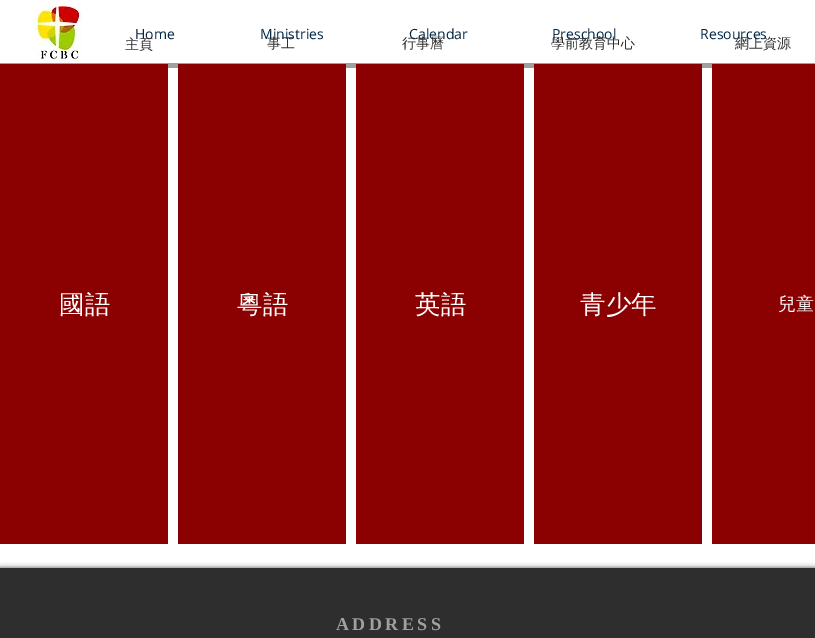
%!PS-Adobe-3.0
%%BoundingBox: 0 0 815 638
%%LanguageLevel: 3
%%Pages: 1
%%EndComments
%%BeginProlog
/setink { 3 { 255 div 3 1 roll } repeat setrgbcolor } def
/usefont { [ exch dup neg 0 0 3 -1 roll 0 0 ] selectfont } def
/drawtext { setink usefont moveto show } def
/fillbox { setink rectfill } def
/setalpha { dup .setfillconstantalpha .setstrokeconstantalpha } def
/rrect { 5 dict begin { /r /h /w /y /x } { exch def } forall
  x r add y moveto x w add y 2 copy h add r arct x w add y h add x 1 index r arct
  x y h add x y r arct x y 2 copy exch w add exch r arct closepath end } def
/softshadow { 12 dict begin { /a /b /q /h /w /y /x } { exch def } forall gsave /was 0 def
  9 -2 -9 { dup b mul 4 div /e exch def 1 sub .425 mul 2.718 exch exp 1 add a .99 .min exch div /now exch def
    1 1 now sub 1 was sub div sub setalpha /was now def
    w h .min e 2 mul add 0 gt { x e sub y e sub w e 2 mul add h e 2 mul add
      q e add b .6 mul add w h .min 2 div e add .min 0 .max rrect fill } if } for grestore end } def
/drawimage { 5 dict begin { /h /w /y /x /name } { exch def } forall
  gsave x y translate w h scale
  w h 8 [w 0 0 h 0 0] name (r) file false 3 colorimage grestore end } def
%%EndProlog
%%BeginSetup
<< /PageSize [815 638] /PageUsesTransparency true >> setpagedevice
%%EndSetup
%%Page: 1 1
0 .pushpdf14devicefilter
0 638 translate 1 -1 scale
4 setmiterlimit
0 0 815 638 255 255 255 fillbox
(assets/img1.rgb) 34 6 48 55 drawimage
(Home) 135 39 /OpenSans-Regular 14 1 38 70 drawtext
(Ministries) 260 39 /OpenSans-Regular 14 1 38 70 drawtext
(Calendar) 409 39 /OpenSans-Regular 14 1 38 70 drawtext
(Preschool) 552 39 /OpenSans-Regular 14 1 38 70 drawtext
(Resources) 700 39 /OpenSans-Regular 14 1 38 70 drawtext
0 63 815 5 160 160 159 fillbox
(主頁) 125 49 /WenQuanYiZenHei-Medium 14 47 46 46 drawtext
(事工) 267 48 /WenQuanYiZenHei-Medium 14 47 46 46 drawtext
(行事曆) 402 48 /WenQuanYiZenHei-Medium 14 47 46 46 drawtext
(學前教育中心) 551 48 /WenQuanYiZenHei-Medium 14 47 46 46 drawtext
(網上資源) 735 48 /WenQuanYiZenHei-Medium 14 47 46 46 drawtext
0 64 168 480 139 0 0 fillbox
(國語) 59 313 /WenQuanYiZenHei-Medium 25.5 255 255 255 drawtext
178 64 168 480 139 0 0 fillbox
(粵語) 237 313 /WenQuanYiZenHei-Medium 25.5 255 255 255 drawtext
356 64 168 480 139 0 0 fillbox
(英語) 415 313 /WenQuanYiZenHei-Medium 25.5 255 255 255 drawtext
534 64 168 480 139 0 0 fillbox
(青少年) 580 313 /WenQuanYiZenHei-Medium 25.5 255 255 255 drawtext
712 64 103 480 139 0 0 fillbox
(兒童) 778 310 /WenQuanYiZenHei-Medium 18 255 255 255 drawtext
0 0 0 setink
0 568 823 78 0 2.5 0.7 softshadow
0 568 815 70 47 46 46 fillbox
/LiberationSerif-Bold 18 usefont
160 160 159 setink
336 630 moveto 3.5 0 (ADDRESS) ashow
.poppdf14devicefilter showpage
%%EOF
